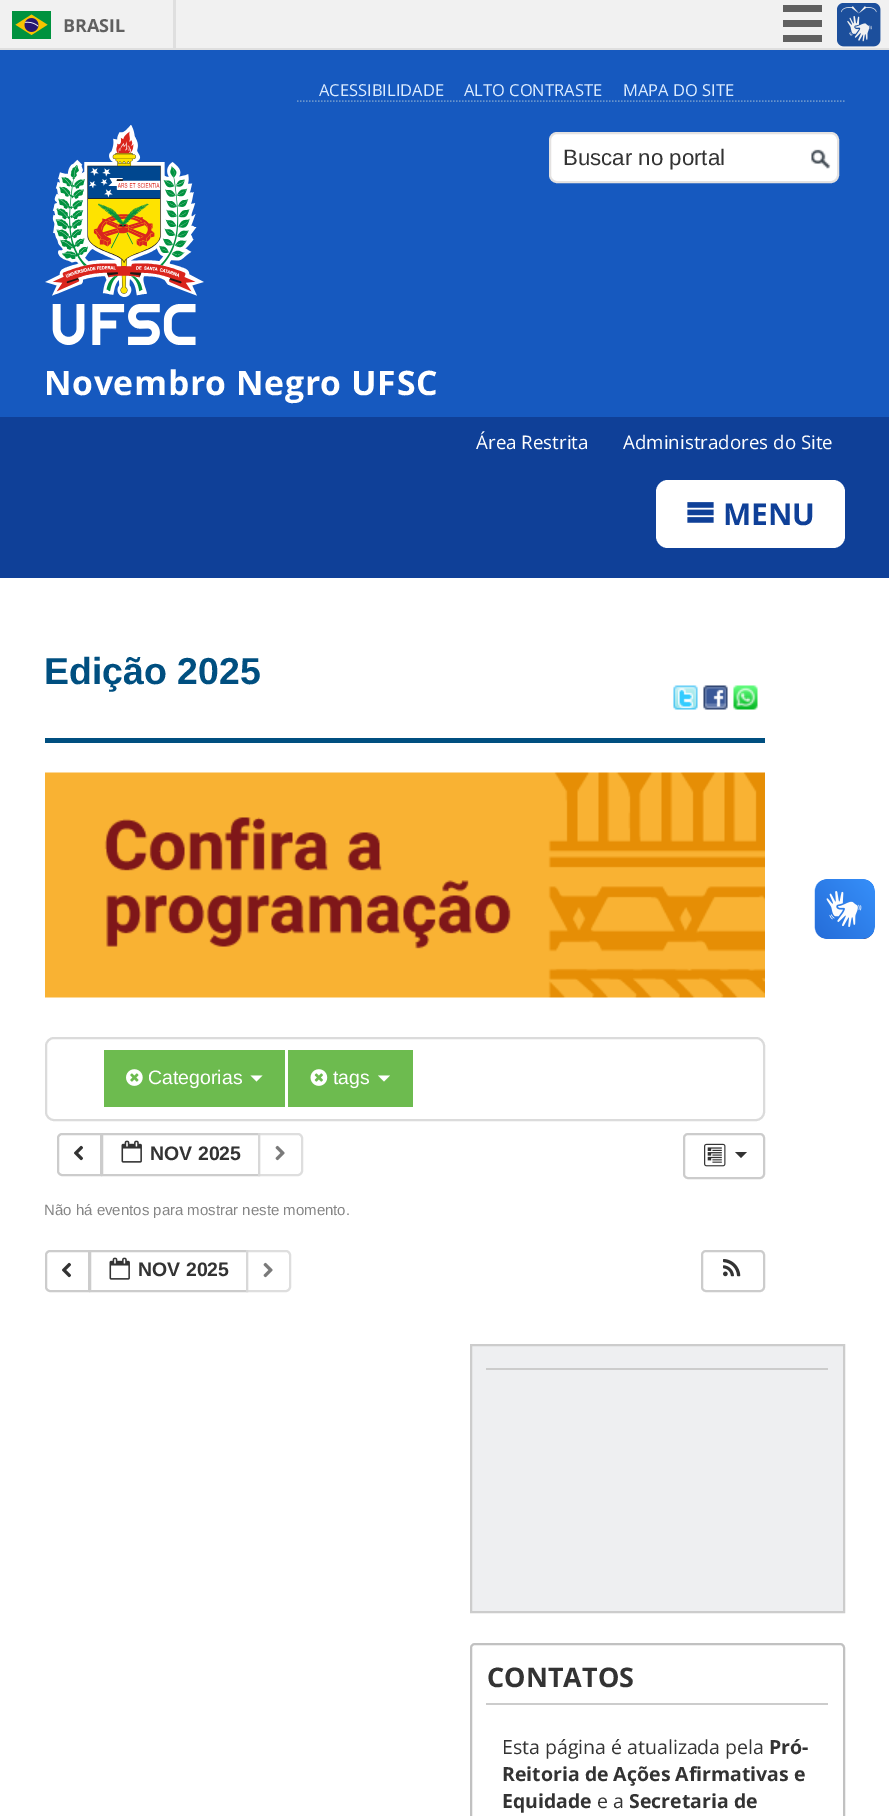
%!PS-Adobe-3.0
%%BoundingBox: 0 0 889 1816
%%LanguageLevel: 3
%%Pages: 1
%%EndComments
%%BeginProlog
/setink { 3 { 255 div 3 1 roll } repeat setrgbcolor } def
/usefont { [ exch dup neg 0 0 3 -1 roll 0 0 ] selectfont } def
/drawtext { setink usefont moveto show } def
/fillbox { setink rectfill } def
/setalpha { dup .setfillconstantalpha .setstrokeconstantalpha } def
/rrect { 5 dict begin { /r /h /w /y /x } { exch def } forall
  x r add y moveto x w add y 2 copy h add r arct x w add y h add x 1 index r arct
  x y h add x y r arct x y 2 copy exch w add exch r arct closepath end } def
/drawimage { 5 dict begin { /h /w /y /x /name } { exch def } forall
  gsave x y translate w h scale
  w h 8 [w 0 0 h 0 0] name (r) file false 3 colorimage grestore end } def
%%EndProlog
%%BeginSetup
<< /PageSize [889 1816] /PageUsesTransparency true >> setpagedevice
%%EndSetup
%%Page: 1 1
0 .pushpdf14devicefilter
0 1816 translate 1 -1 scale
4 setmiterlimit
0 0 889 1816 255 255 255 fillbox
0 0 889 48 241 241 241 fillbox
0 48 889 2 223 223 223 fillbox
173 0 3 48 223 223 223 fillbox
(assets/img1.rgb) 12 11 39 28 drawimage
(BRASIL) 63 32 /OpenSans-Bold 18 96 96 96 drawtext
783 5 39 7 96 96 96 fillbox
783 20 39 7 96 96 96 fillbox
783 35 39 7 96 96 96 fillbox
(assets/img2.rgb) 837 3 44 44 drawimage
0 50 889 367 22 89 191 fillbox
104 147 203 setink
1.5 setlinewidth
[1.5 1.5] 0 setdash
297 101 moveto 844.5 101 lineto stroke
(ACESSIBILIDADE) 319 96 /OpenSans-Regular 16.5 220 236 255 drawtext
(ALTO CONTRASTE) 464 96 /OpenSans-Regular 16.5 220 236 255 drawtext
(MAPA DO SITE) 623 96 /OpenSans-Regular 16.5 220 236 255 drawtext
255 255 255 setink
550 133 288 49 7 rrect gsave fill grestore
228 226 225 setink
2 setlinewidth
[] 0 setdash
stroke
(Buscar no portal) 563 165 /LiberationSans-Regular 22.25 51 51 51 drawtext
(assets/img3.rgb) 811 149 20 20 drawimage
(assets/img4.rgb) 45 125 159 220 drawimage
/OpenSans-Bold 33.75 usefont
255 255 255 setink
44 395 moveto 0.6 0 (Novembro Negro UFSC) ashow
0 417 889 161 15 64 152 fillbox
(Área Restrita) 476 449 /OpenSans-Regular 18.75 255 255 255 drawtext
(Administradores do Site) 623 449 /OpenSans-Regular 18.75 255 255 255 drawtext
656 480 189 68 12 rrect fill
(assets/img5.rgb) 687 502 27 21 drawimage
(MENU) 723 525 /OpenSans-Bold 30 15 64 152 drawtext
(Edição 2025) 44 684 /LiberationSans-Bold 37.5 0 79 128 drawtext
45 738 720 5 0 79 128 fillbox
(assets/img6.rgb) 673 685 25 25 drawimage
(assets/img7.rgb) 703 685 25 25 drawimage
(assets/img8.rgb) 733 685 25 25 drawimage
(assets/img9.rgb) 45 772 720 226 drawimage
219 219 219 setink
46 1038 718 82 8 rrect stroke
104 1050 181 57 109 187 79 fillbox
(assets/img10.rgb) 126 1069 17 17 drawimage
(Categorias) 148 1084 /LiberationSans-Regular 19.5 255 255 255 drawtext
250.5 1075.5 moveto 262.5 1075.5 lineto 256.5 1081.5 lineto closepath fill
288 1050 125 57 109 187 79 fillbox
(assets/img11.rgb) 310 1069 18 17 drawimage
(tags) 333 1084 /LiberationSans-Regular 19.5 255 255 255 drawtext
378 1075.5 moveto 390 1075.5 lineto 384 1081.5 lineto closepath fill
204 204 204 setink
62 1134 moveto 101 1134 lineto 101 1175 lineto 62 1175 lineto 60 1175 58 1173 58 1171 curveto 58 1138 lineto 58 1136 60 1134 62 1134 curveto closepath stroke
(assets/img12.rgb) 74 1145 9 16 drawimage
102 1134 157 41 rectstroke
(assets/img13.rgb) 121 1140 21 23 drawimage
(NOV 2025) 150 1160 /LiberationSans-Bold 19.5 51 51 51 drawtext
0.65 setalpha
255 255 255 setink
258 1133 moveto 298 1133 lineto 301 1133 303 1135 303 1138 curveto 303 1171 lineto 303 1174 301 1176 298 1176 curveto 258 1176 lineto closepath fill
204 204 204 setink
259 1134 moveto 298 1134 lineto 300 1134 302 1136 302 1138 curveto 302 1171 lineto 302 1173 300 1175 298 1175 curveto 259 1175 lineto closepath stroke
1 setalpha
(assets/img14.rgb) 275 1145 10 16 drawimage
684 1134 80 44 4 rrect stroke
(assets/img15.rgb) 704 1143 22 24 drawimage
51 51 51 setink
735 1152 moveto 747 1152 lineto 741 1158 lineto closepath fill
(Não há eventos para mostrar neste momento.) 44 1215 /LiberationSans-Regular 15 133 133 133 drawtext
204 204 204 setink
50 1251 moveto 89 1251 lineto 89 1291 lineto 50 1291 lineto 48 1291 46 1289 46 1287 curveto 46 1255 lineto 46 1253 48 1251 50 1251 curveto closepath stroke
(assets/img12.rgb) 62 1262 9 16 drawimage
90 1251 157 40 rectstroke
(assets/img13.rgb) 109 1257 21 23 drawimage
(NOV 2025) 138 1276 /LiberationSans-Bold 19.5 51 51 51 drawtext
0.65 setalpha
255 255 255 setink
246 1250 moveto 286 1250 lineto 289 1250 291 1252 291 1255 curveto 291 1287 lineto 291 1290 289 1292 286 1292 curveto 246 1292 lineto closepath fill
204 204 204 setink
247 1251 moveto 286 1251 lineto 288 1251 290 1253 290 1255 curveto 290 1287 lineto 290 1289 288 1291 286 1291 curveto 247 1291 lineto closepath stroke
1 setalpha
(assets/img14.rgb) 263 1262 10 16 drawimage
702 1251 62 40 4 rrect stroke
(assets/img16.rgb) 723 1259 18 18 drawimage
238 239 241 setink
471 1345 moveto 844 1345 lineto 844 1612 lineto 471 1612 lineto closepath gsave fill grestore
204 204 204 setink
stroke
486 1368 342 2 204 204 204 fillbox
193 193 193 setink
471 1644 373 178 4 rrect stroke
486 1703 342 2 204 204 204 fillbox
(CONTATOS) 487 1687 /OpenSans-Bold 27 51 51 51 drawtext
(Esta página é atualizada pela) 502 1754 /OpenSans-Regular 19.5 51 51 51 drawtext
(Pró-) 769 1754 /OpenSans-Bold 19.5 51 51 51 drawtext
(Reitoria de Ações Afirmativas e) 502 1781 /OpenSans-Bold 19.5 51 51 51 drawtext
(Equidade) 502 1808 /OpenSans-Bold 19.5 51 51 51 drawtext
(e a) 597 1808 /OpenSans-Regular 19.5 51 51 51 drawtext
(Secretaria de) 629 1808 /OpenSans-Bold 19.5 51 51 51 drawtext
(assets/img17.rgb) 814 879 61 60 drawimage
(assets/img18.rgb) 815 879 60 60 drawimage
.poppdf14devicefilter showpage
%%EOF
